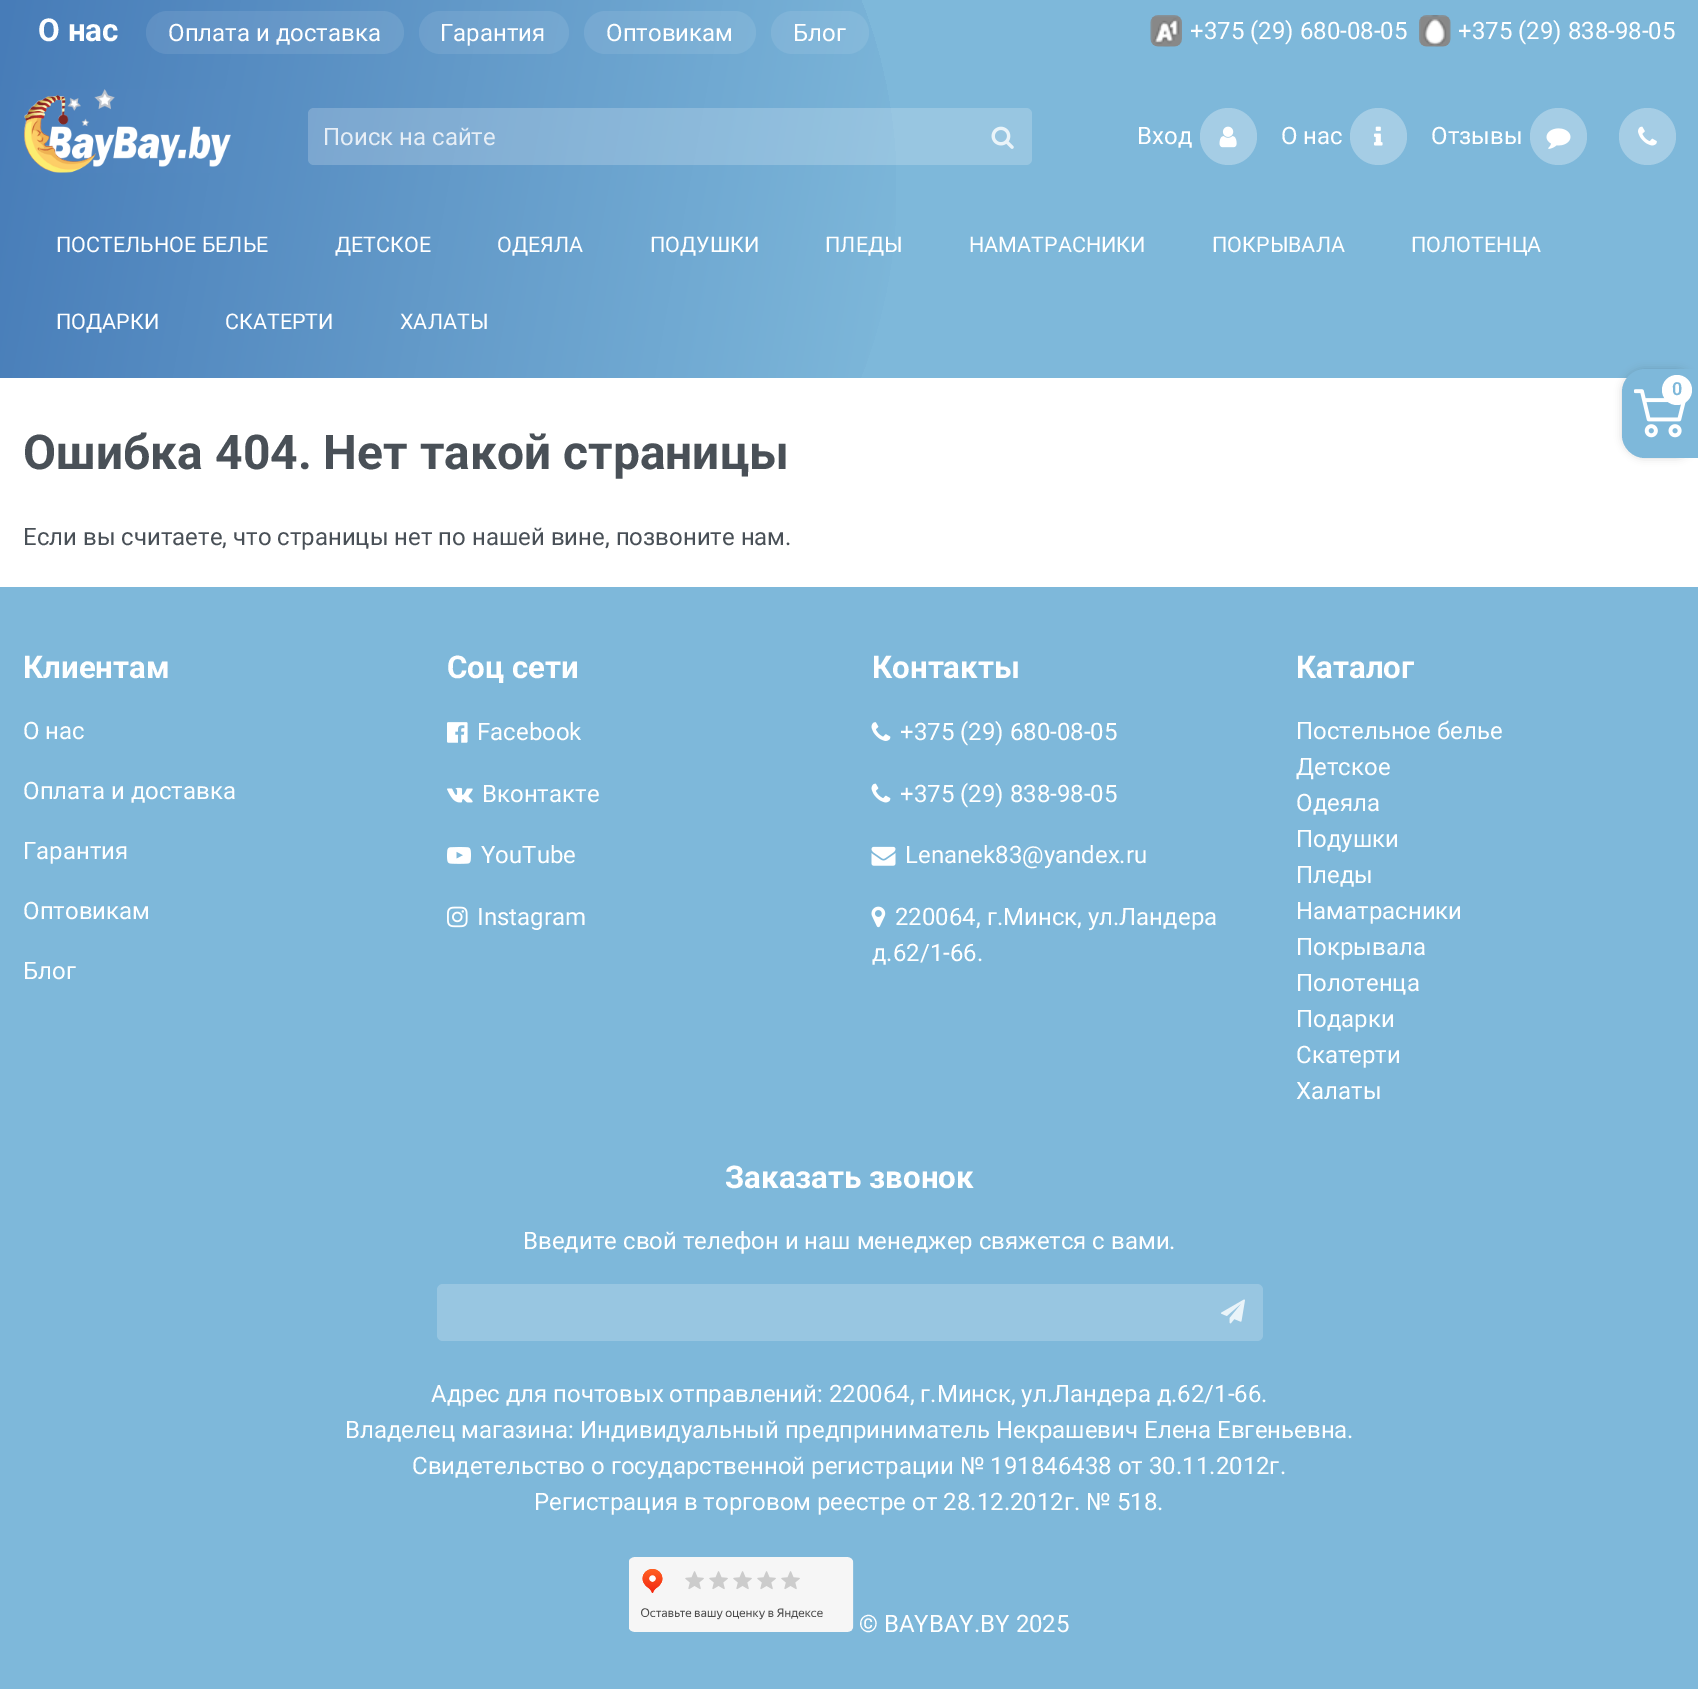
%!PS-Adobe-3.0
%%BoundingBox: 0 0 1698 1689
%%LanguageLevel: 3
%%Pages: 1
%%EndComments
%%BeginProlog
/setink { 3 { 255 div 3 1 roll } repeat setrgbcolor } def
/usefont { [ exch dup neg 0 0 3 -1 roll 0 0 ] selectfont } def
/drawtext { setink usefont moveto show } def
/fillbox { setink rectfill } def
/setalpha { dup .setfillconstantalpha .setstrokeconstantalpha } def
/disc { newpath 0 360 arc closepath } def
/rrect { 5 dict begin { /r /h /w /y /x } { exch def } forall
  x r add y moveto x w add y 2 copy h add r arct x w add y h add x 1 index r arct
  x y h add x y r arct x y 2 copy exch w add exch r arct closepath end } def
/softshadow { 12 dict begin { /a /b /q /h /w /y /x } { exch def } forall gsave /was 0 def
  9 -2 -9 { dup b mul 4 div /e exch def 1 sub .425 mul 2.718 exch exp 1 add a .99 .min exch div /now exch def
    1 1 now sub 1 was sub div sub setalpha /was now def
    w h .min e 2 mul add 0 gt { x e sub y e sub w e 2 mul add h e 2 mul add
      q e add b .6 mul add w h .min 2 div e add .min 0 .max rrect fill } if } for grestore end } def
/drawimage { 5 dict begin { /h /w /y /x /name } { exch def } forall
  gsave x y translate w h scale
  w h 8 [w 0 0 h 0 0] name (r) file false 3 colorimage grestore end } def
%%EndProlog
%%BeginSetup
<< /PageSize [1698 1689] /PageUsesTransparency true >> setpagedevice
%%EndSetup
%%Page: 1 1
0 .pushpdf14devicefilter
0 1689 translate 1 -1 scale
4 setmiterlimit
0 0 1698 1689 126 184 218 fillbox
gsave
0 0 896 378 rectclip
gsave 382.5 188.5 514 disc clip newpath
<< /ShadingType 2 /ColorSpace /DeviceRGB /Coords [-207 122 909 324] /Extend [true true] /Function << /FunctionType 2 /Domain [0 1] /C0 [0.239 0.439 0.698] /C1 [0.494 0.722 0.855] /N 1 >> >> shfill grestore
grestore
(О нас) 38 41 /Roboto-Bold 31.5 255 255 255 drawtext
0.09 setalpha
146 11 258 43 21.5 rrect fill
1 setalpha
(Оплата и доставка) 168 41 /Roboto-Regular 24 255 255 255 drawtext
0.09 setalpha
419 11 150 43 21.5 rrect fill
1 setalpha
(Гарантия) 440 41 /Roboto-Regular 24 255 255 255 drawtext
0.09 setalpha
584 11 172 43 21.5 rrect fill
1 setalpha
(Оптовикам) 606 41 /Roboto-Regular 24 255 255 255 drawtext
0.09 setalpha
771 11 98 43 21.5 rrect fill
1 setalpha
(Блог) 793 41 /Roboto-Regular 24 255 255 255 drawtext
(assets/img1.rgb) 1150 15 32 32 drawimage
(+375 \(29\) 680-08-05) 1190 39 /Roboto-Regular 24 255 255 255 drawtext
(assets/img2.rgb) 1419 15 32 32 drawimage
(+375 \(29\) 838-98-05) 1458 39 /Roboto-Regular 24 255 255 255 drawtext
(assets/img3.rgb) 24 89 207 84 drawimage
0.2 setalpha
308 108 724 57 6 rrect fill
1 setalpha
(Поиск на сайте) 323 145 /Roboto-Regular 24 230 238 246 drawtext
(assets/img4.rgb) 991 126 23 23 drawimage
(Вход) 1137 144 /Roboto-Regular 24 255 255 255 drawtext
165 205 229 setink
1228.5 136.5 28.5 disc fill
(assets/img5.rgb) 1219 126 18 22 drawimage
(О нас) 1281 144 /Roboto-Regular 24 255 255 255 drawtext
165 205 229 setink
1378.5 136.5 28.5 disc fill
(assets/img6.rgb) 1374 126 9 20 drawimage
(Отзывы) 1431 144 /Roboto-Regular 24 255 255 255 drawtext
165 205 229 setink
1558.5 136.5 28.5 disc fill
(assets/img7.rgb) 1546 128 25 21 drawimage
1647.5 136.5 28.5 disc fill
(assets/img8.rgb) 1638 126 19 20 drawimage
0 378 1698 209 255 255 255 fillbox
0 0 0 setink
1622 369 76 89 23 4 0.15 softshadow
126 184 218 setink
1645 369 moveto 1698 369 lineto 1698 458 lineto 1645 458 lineto 1632.5 458 1622 447.5 1622 435 curveto 1622 392 lineto 1622 379.5 1632.5 369 1645 369 curveto closepath fill
(assets/img9.rgb) 1634 389 52 49 drawimage
255 255 255 setink
1677 390 15 disc fill
(0) 1672 395 /Roboto-SemiBold 18 126 184 218 drawtext
(ПОСТЕЛЬНОЕ БЕЛЬЕ) 56 252 /Roboto-Regular 21.5 255 255 255 drawtext
(ДЕТСКОЕ) 335 252 /Roboto-Regular 21.5 255 255 255 drawtext
(ОДЕЯЛА) 497 252 /Roboto-Regular 21.5 255 255 255 drawtext
(ПОДУШКИ) 650 252 /Roboto-Regular 21.5 255 255 255 drawtext
(ПЛЕДЫ) 825 252 /Roboto-Regular 21.5 255 255 255 drawtext
(НАМАТРАСНИКИ) 969 252 /Roboto-Regular 21.5 255 255 255 drawtext
(ПОКРЫВАЛА) 1212 252 /Roboto-Regular 21.5 255 255 255 drawtext
(ПОЛОТЕНЦА) 1411 252 /Roboto-Regular 21.5 255 255 255 drawtext
(ПОДАРКИ) 56 329 /Roboto-Regular 21.5 255 255 255 drawtext
(СКАТЕРТИ) 225 329 /Roboto-Regular 21.5 255 255 255 drawtext
(ХАЛАТЫ) 400 329 /Roboto-Regular 21.5 255 255 255 drawtext
(Ошибка 404. Нет такой страницы) 23 469 /Roboto-Bold 48 73 80 87 drawtext
(Если вы считаете, что страницы нет по нашей вине, позвоните нам.) 23 545 /Roboto-Regular 24 73 80 87 drawtext
(Клиентам) 23 678 /Roboto-Bold 31.25 255 255 255 drawtext
(О нас) 23 739 /Roboto-Regular 24 255 255 255 drawtext
(Оплата и доставка) 23 799 /Roboto-Regular 24 255 255 255 drawtext
(Гарантия) 23 859 /Roboto-Regular 24 255 255 255 drawtext
(Оптовикам) 23 919 /Roboto-Regular 24 255 255 255 drawtext
(Блог) 23 979 /Roboto-Regular 24 255 255 255 drawtext
(Соц сети) 447 678 /Roboto-Bold 31.25 255 255 255 drawtext
(assets/img10.rgb) 447 722 21 21 drawimage
(Facebook) 477 740 /Roboto-Regular 24 255 255 255 drawtext
(assets/img11.rgb) 447 787 26 16 drawimage
(Вконтакте) 482 802 /Roboto-Regular 24 255 255 255 drawtext
(assets/img12.rgb) 447 847 24 17 drawimage
(YouTube) 481 863 /Roboto-Regular 24 255 255 255 drawtext
(assets/img13.rgb) 447 906 21 22 drawimage
(Instagram) 477 925 /Roboto-Regular 24 255 255 255 drawtext
(Контакты) 872 678 /Roboto-Bold 31.25 255 255 255 drawtext
(assets/img14.rgb) 871 722 20 19 drawimage
(+375 \(29\) 680-08-05) 900 740 /Roboto-Regular 24 255 255 255 drawtext
(assets/img15.rgb) 871 783 20 20 drawimage
(+375 \(29\) 838-98-05) 900 802 /Roboto-Regular 24 255 255 255 drawtext
(assets/img16.rgb) 871 846 25 20 drawimage
(Lenanek83@yandex.ru) 905 863 /Roboto-Regular 24 255 255 255 drawtext
(assets/img17.rgb) 871 906 15 22 drawimage
(220064, г.Минск, ул.Ландера) 895 925 /Roboto-Regular 24 255 255 255 drawtext
(д.62/1-66.) 872 961 /Roboto-Regular 24 255 255 255 drawtext
(Каталог) 1296 678 /Roboto-Bold 31.25 255 255 255 drawtext
(Постельное белье) 1296 739 /Roboto-Regular 24 255 255 255 drawtext
(Детское) 1296 775 /Roboto-Regular 24 255 255 255 drawtext
(Одеяла) 1296 811 /Roboto-Regular 24 255 255 255 drawtext
(Подушки) 1296 847 /Roboto-Regular 24 255 255 255 drawtext
(Пледы) 1296 883 /Roboto-Regular 24 255 255 255 drawtext
(Наматрасники) 1296 919 /Roboto-Regular 24 255 255 255 drawtext
(Покрывала) 1296 955 /Roboto-Regular 24 255 255 255 drawtext
(Полотенца) 1296 991 /Roboto-Regular 24 255 255 255 drawtext
(Подарки) 1296 1027 /Roboto-Regular 24 255 255 255 drawtext
(Скатерти) 1296 1063 /Roboto-Regular 24 255 255 255 drawtext
(Халаты) 1296 1099 /Roboto-Regular 24 255 255 255 drawtext
(Заказать звонок) 725 1188 /Roboto-Bold 31.25 255 255 255 drawtext
(Введите свой телефон и наш менеджер свяжется с вами.) 523 1249 /Roboto-Regular 24 255 255 255 drawtext
152 198 225 setink
437 1284 826 57 6 rrect fill
(assets/img18.rgb) 1221 1299 24 25 drawimage
(Адрес для почтовых отправлений: 220064, г.Минск, ул.Ландера д.62/1-66.) 431 1402 /Roboto-Regular 24 255 255 255 drawtext
(Владелец магазина: Индивидуальный предприниматель Некрашевич Елена Евгеньевна.) 345 1438 /Roboto-Regular 24 255 255 255 drawtext
(Свидетельство о государственной регистрации № 191846438 от 30.11.2012г.) 412 1474 /Roboto-Regular 24 255 255 255 drawtext
(Регистрация в торговом реестре от 28.12.2012г. № 518.) 534 1510 /Roboto-Regular 24 255 255 255 drawtext
(assets/img19.rgb) 629 1557 225 75 drawimage
(© BAYBAY.BY 2025) 859 1632 /Roboto-Regular 24 255 255 255 drawtext
.poppdf14devicefilter showpage
%%EOF
